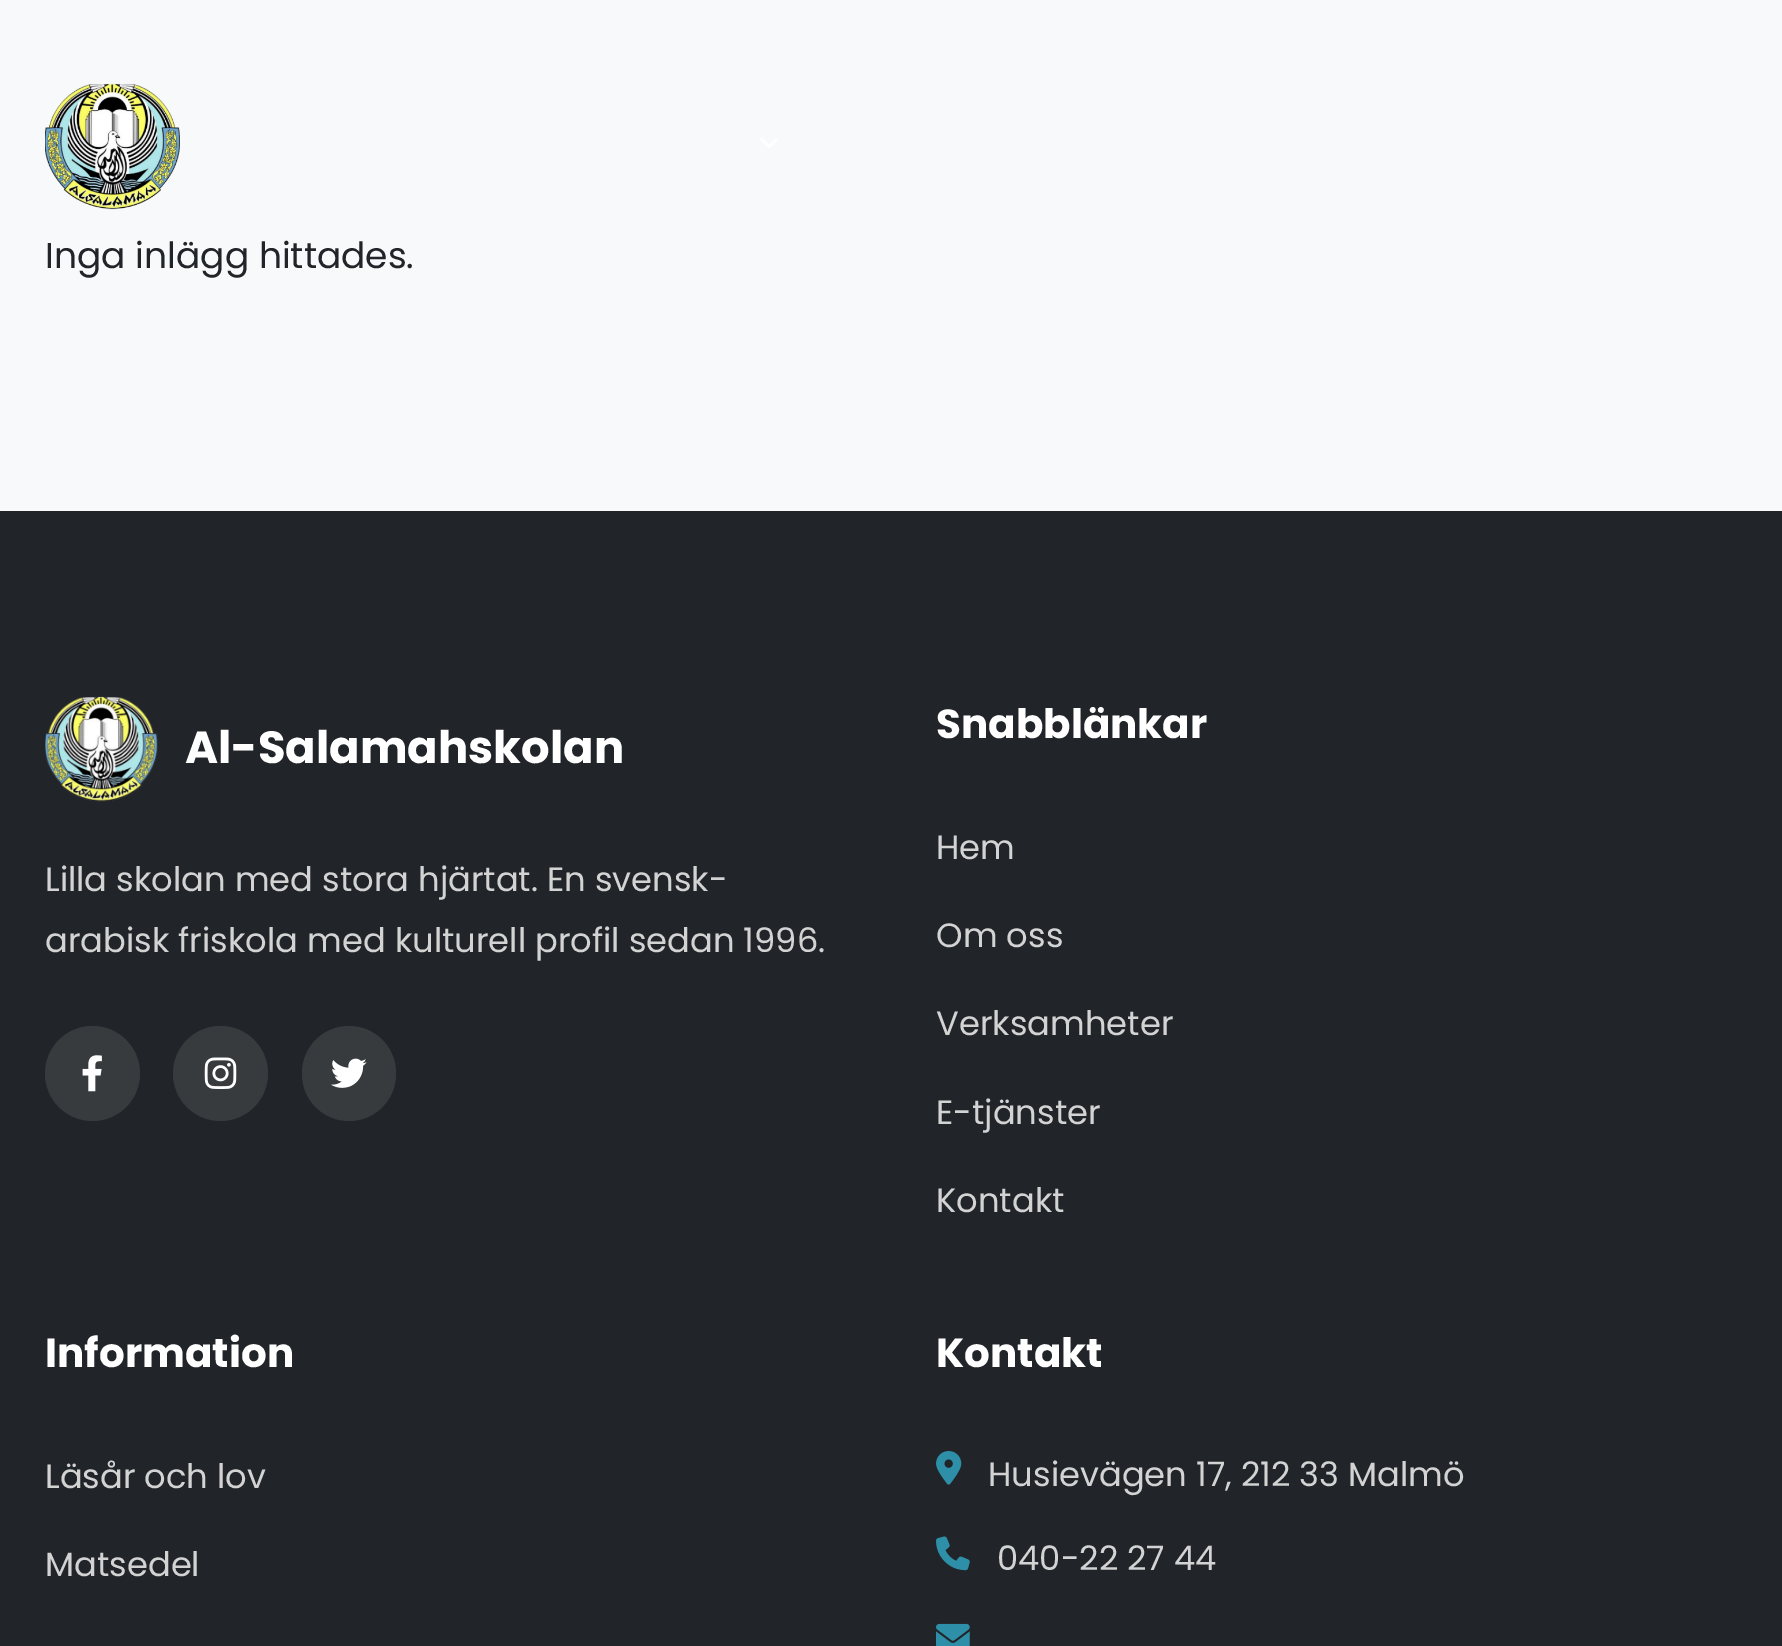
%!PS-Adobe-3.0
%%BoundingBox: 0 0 1782 1646
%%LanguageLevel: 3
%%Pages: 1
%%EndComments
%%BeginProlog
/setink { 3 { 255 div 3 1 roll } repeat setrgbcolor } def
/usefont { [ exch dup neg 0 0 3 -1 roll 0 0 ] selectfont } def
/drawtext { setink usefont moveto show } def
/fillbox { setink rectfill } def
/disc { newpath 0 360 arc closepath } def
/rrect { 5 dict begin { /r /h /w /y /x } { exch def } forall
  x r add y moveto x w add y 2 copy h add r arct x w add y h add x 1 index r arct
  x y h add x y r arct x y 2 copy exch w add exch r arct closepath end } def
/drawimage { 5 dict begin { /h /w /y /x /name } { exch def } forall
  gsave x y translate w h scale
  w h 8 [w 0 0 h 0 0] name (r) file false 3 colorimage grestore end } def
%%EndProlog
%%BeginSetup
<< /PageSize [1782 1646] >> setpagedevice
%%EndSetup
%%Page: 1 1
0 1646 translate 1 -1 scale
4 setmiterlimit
0 0 1782 1646 248 249 250 fillbox
(assets/img1.rgb) 45 83 135 127 drawimage
(assets/img2.rgb) 760 138 18 10 drawimage
(Inga inlägg hittades.) 45 268 /Poppins-Regular 36 33 37 41 drawtext
0 511 1782 1135 33 37 41 fillbox
(assets/img3.rgb) 45 696 113 106 drawimage
(Al-Salamahskolan) 185 763 /Poppins-Bold 45 255 255 255 drawtext
(Lilla skolan med stora hjärtat. En svensk-) 45 891 /Poppins-Regular 33.75 211 211 212 drawtext
(arabisk friskola med kulturell profil sedan 1996.) 45 952 /Poppins-Regular 33.75 211 211 212 drawtext
55 59 62 setink
92.5 1073.5 47.5 disc fill
(assets/img4.rgb) 82 1055 20 37 drawimage
220.5 1073.5 47.5 disc fill
(assets/img5.rgb) 204 1057 33 32 drawimage
302 1026 94 95 47 rrect fill
(assets/img6.rgb) 331 1058 36 30 drawimage
(Snabblänkar) 936 738 /Poppins-Bold 40.5 255 255 255 drawtext
(Hem) 936 859 /Poppins-Regular 33.75 211 211 212 drawtext
(Om oss) 936 947 /Poppins-Regular 33.75 211 211 212 drawtext
(Verksamheter) 936 1035 /Poppins-Regular 33.75 211 211 212 drawtext
(E-tjänster) 936 1124 /Poppins-Regular 33.75 211 211 212 drawtext
(Kontakt) 936 1212 /Poppins-Regular 33.75 211 211 212 drawtext
(Information) 45 1367 /Poppins-Bold 40.5 255 255 255 drawtext
(Läsår och lov) 45 1488 /Poppins-Regular 33.75 211 211 212 drawtext
(Matsedel) 45 1576 /Poppins-Regular 33.75 211 211 212 drawtext
(Kontakt) 936 1367 /Poppins-Bold 40.5 255 255 255 drawtext
(assets/img7.rgb) 936 1451 26 34 drawimage
(Husievägen 17, 212 33 Malmö) 988 1486 /Poppins-Regular 33.75 211 211 212 drawtext
(assets/img8.rgb) 936 1536 34 35 drawimage
(040-22 27 44) 997 1570 /Poppins-Regular 33.75 211 211 212 drawtext
(assets/img9.rgb) 936 1623 34 23 drawimage
showpage
%%EOF
